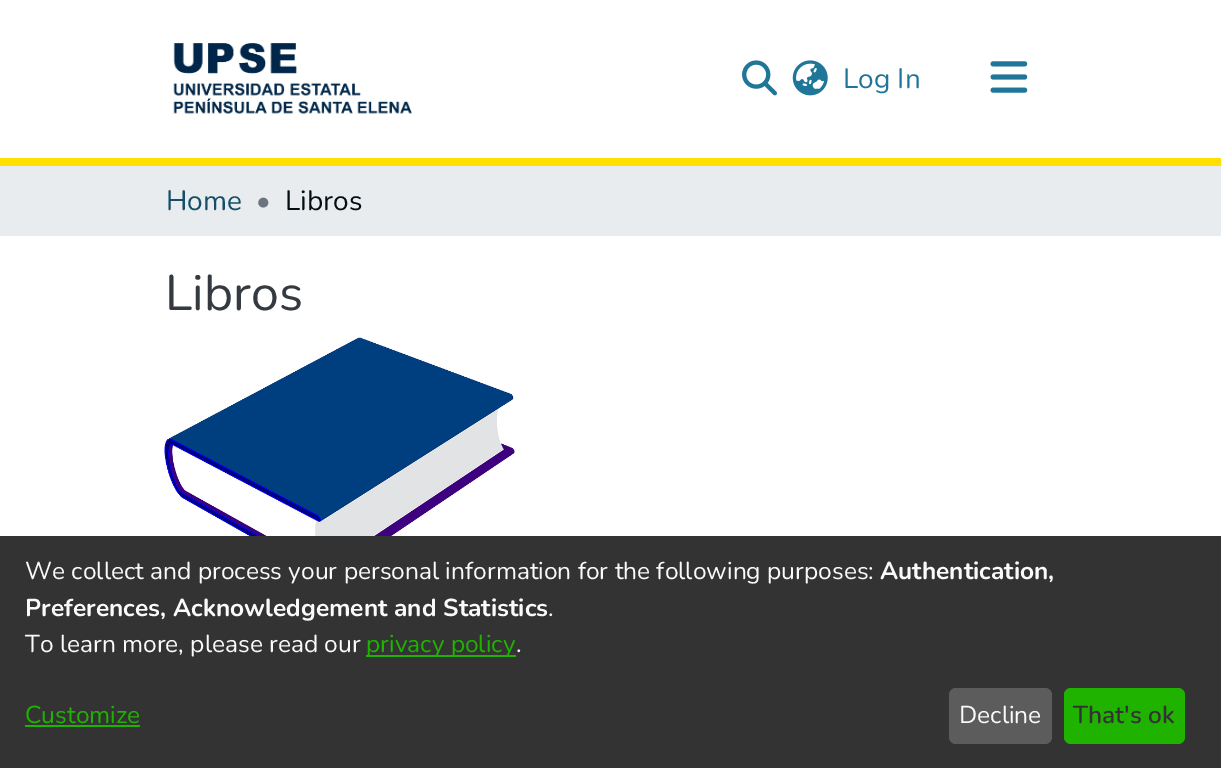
%!PS-Adobe-3.0
%%BoundingBox: 0 0 1221 768
%%LanguageLevel: 3
%%Pages: 1
%%EndComments
%%BeginProlog
/setink { 3 { 255 div 3 1 roll } repeat setrgbcolor } def
/usefont { [ exch dup neg 0 0 3 -1 roll 0 0 ] selectfont } def
/drawtext { setink usefont moveto show } def
/fillbox { setink rectfill } def
/rrect { 5 dict begin { /r /h /w /y /x } { exch def } forall
  x r add y moveto x w add y 2 copy h add r arct x w add y h add x 1 index r arct
  x y h add x y r arct x y 2 copy exch w add exch r arct closepath end } def
/drawimage { 5 dict begin { /h /w /y /x /name } { exch def } forall
  gsave x y translate w h scale
  w h 8 [w 0 0 h 0 0] name (r) file false 3 colorimage grestore end } def
%%EndProlog
%%BeginSetup
<< /PageSize [1221 768] >> setpagedevice
%%EndSetup
%%Page: 1 1
0 768 translate 1 -1 scale
4 setmiterlimit
0 0 1221 768 255 255 255 fillbox
0 158 1221 8 255 224 0 fillbox
(assets/img1.rgb) 173 43 239 71 drawimage
(assets/img2.rgb) 742 60 35 36 drawimage
(assets/img3.rgb) 792 60 36 36 drawimage
(Log In) 843 88 /Nunito-Regular 28 32 118 152 drawtext
(assets/img4.rgb) 990 61 38 32 drawimage
0 166 1221 70 233 236 239 fillbox
(Home) 166 210 /Nunito-Regular 28 21 78 102 drawtext
(•) 256 210 /Nunito-Regular 28 108 117 125 drawtext
(Libros) 285 210 /Nunito-Regular 28 4 13 17 drawtext
(Libros) 165 310 /Nunito-Regular 50 52 58 64 drawtext
(assets/img5.rgb) 164 337 351 199 drawimage
0 536 1221 232 51 51 51 fillbox
(We collect and process your personal information for the following purposes:) 25 579 /Nunito-Regular 24.5 250 250 250 drawtext
(Authentication,) 880 579 /Nunito-Bold 24.5 250 250 250 drawtext
(Preferences, Acknowledgement and Statistics) 25 616 /Nunito-Bold 24.5 250 250 250 drawtext
(.) 548 616 /Nunito-Regular 24.5 250 250 250 drawtext
(To learn more, please read our) 25 652 /Nunito-Regular 24.5 250 250 250 drawtext
366 655 150 2 31 179 0 fillbox
(privacy policy) 366 652 /Nunito-Regular 24.5 31 179 0 drawtext
(.) 516 652 /Nunito-Regular 24.5 250 250 250 drawtext
(Customize) 25 723 /Nunito-Regular 24.5 31 179 0 drawtext
25 725 115 2 31 179 0 fillbox
92 92 92 setink
949 688 103 56 7 rrect fill
(Decline) 959 723 /Nunito-Regular 24.5 250 250 250 drawtext
31 179 0 setink
1064 688 121 56 7 rrect fill
(That's ok) 1073 723 /Nunito-SemiBold 24.5 51 51 51 drawtext
showpage
%%EOF
